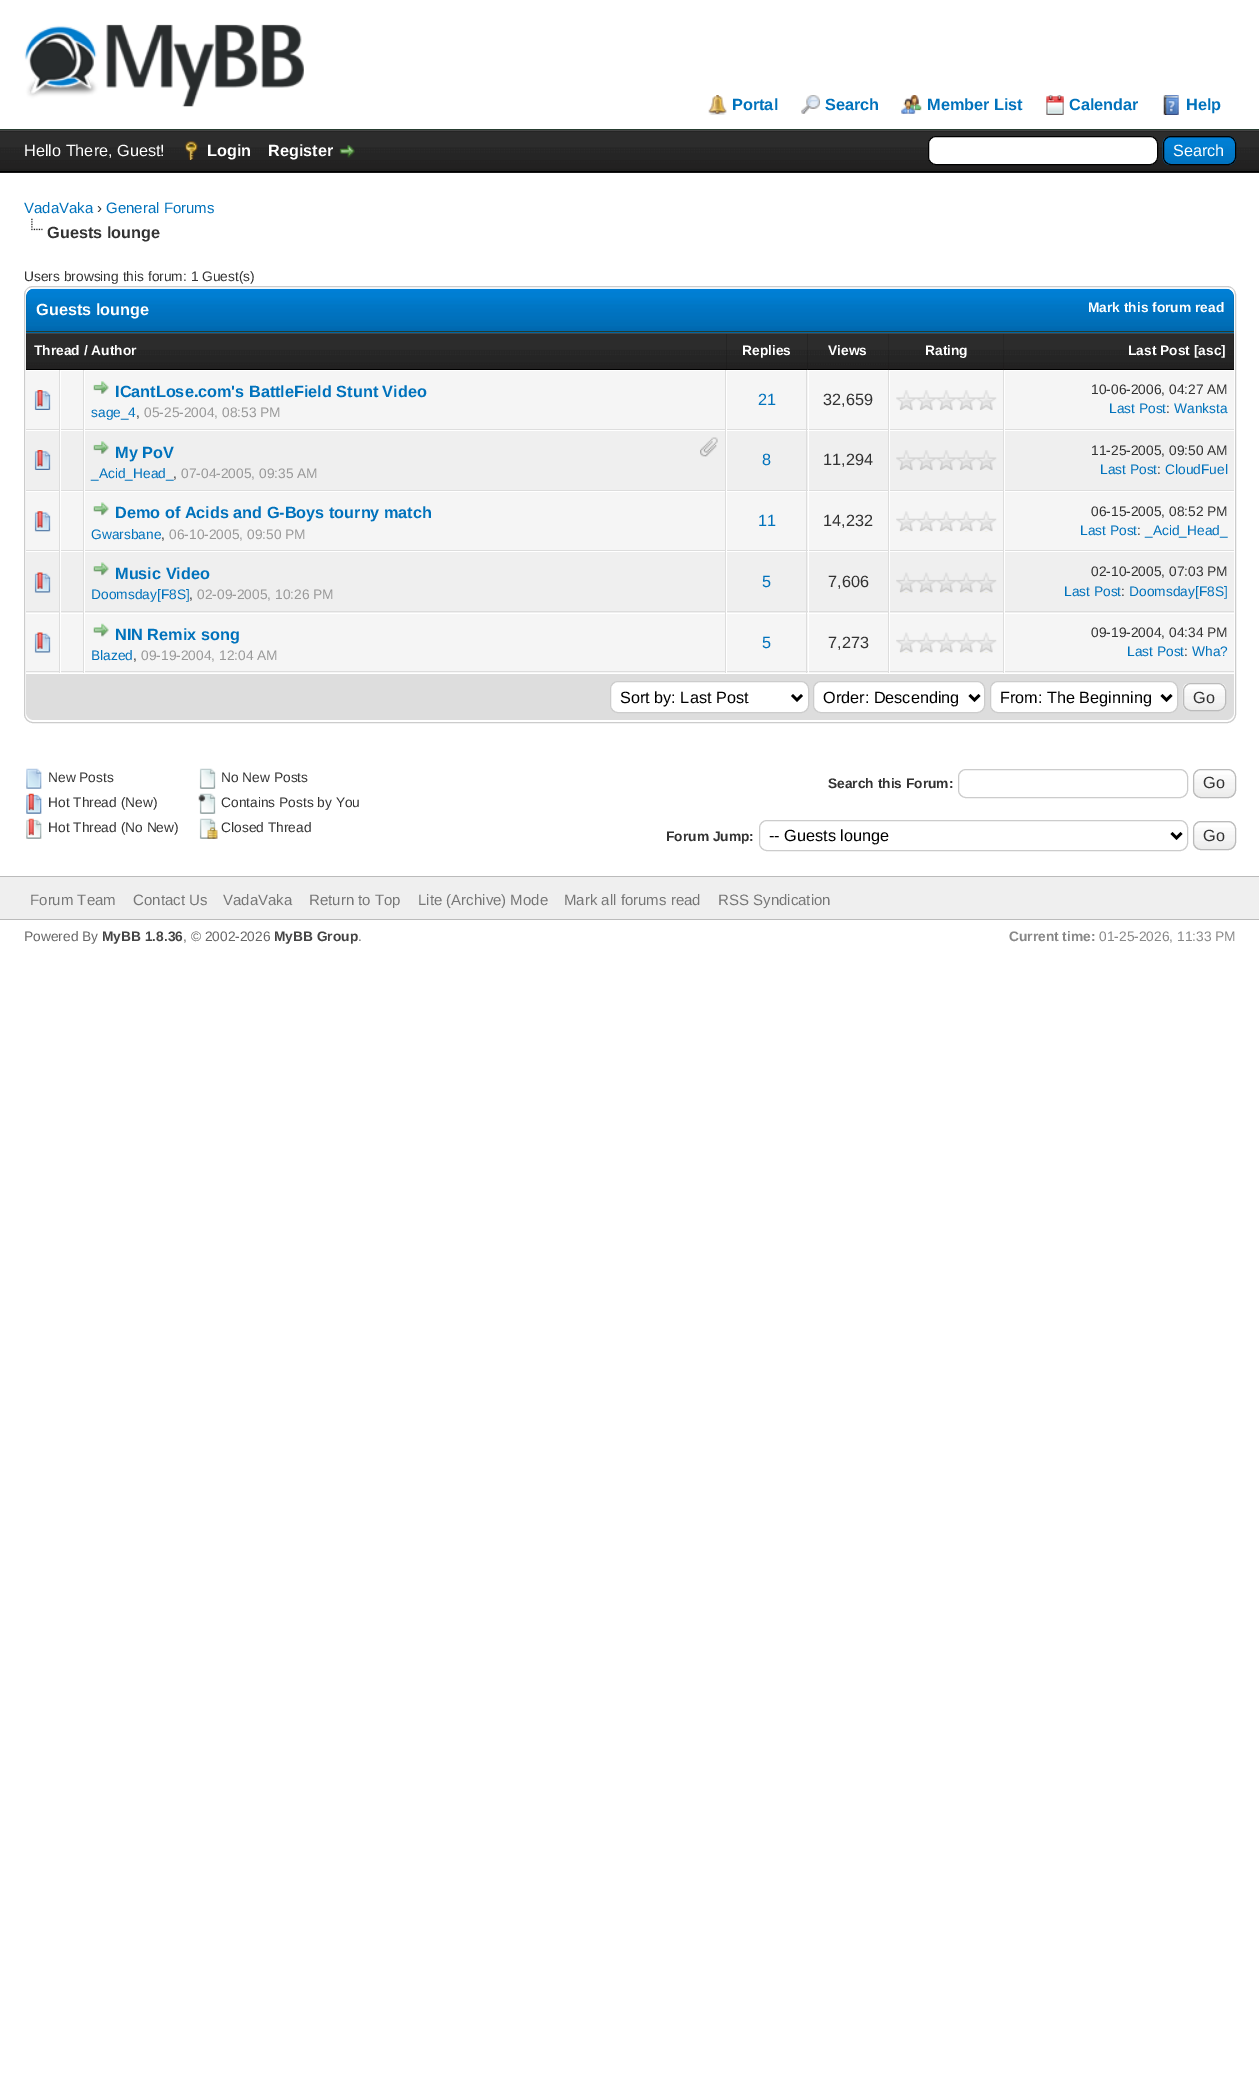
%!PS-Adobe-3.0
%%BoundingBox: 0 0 1259 2075
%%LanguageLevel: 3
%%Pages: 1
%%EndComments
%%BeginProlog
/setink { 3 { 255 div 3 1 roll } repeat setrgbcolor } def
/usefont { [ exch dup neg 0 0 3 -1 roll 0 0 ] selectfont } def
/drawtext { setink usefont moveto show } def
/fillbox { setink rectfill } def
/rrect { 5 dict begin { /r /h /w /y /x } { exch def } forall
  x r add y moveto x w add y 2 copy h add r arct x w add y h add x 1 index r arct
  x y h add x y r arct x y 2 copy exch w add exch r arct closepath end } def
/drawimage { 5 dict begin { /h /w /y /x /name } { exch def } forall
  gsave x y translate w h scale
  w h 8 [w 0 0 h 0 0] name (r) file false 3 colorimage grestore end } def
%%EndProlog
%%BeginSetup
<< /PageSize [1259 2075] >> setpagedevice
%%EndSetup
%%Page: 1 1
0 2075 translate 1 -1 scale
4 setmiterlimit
0 0 1259 2075 255 255 255 fillbox
0 129 1259 1 38 60 48 fillbox
(assets/img1.rgb) 24 24 280 83 drawimage
(assets/img2.rgb) 708 95 19 20 drawimage
(Portal) 732 110 /LiberationSans-Bold 16.25 0 114 188 drawtext
(assets/img3.rgb) 801 95 19 19 drawimage
(Search) 825 110 /LiberationSans-Bold 16.25 0 114 188 drawtext
(assets/img4.rgb) 901 95 21 19 drawimage
(Member List) 927 110 /LiberationSans-Bold 16.25 0 114 188 drawtext
(assets/img5.rgb) 1046 95 18 20 drawimage
(Calendar) 1069 110 /LiberationSans-Bold 16.25 0 114 188 drawtext
(assets/img6.rgb) 1163 95 16 20 drawimage
(Help) 1186 110 /LiberationSans-Bold 16.25 0 114 188 drawtext
0 131 1259 42 15 15 15 fillbox
(assets/img7.rgb) 0 131 1259 42 drawimage
0 130 1259 1 68 68 68 fillbox
0 171 1259 1 0 0 0 fillbox
(Hello There, Guest!) 24 156 /LiberationSans-Regular 16.25 255 255 255 drawtext
(assets/img8.rgb) 185 141 13 19 drawimage
(Login) 207 156 /LiberationSans-Bold 16.25 255 255 255 drawtext
(Register) 268 156 /LiberationSans-Bold 16.25 255 255 255 drawtext
(assets/img9.rgb) 339 145 16 13 drawimage
928.5 136.5 229 28 7.5 rrect gsave fill grestore
0 0 0 setink
stroke
0 102 162 setink
1163 136 73 29 8 rrect fill
(assets/img10.rgb) 1162 137 75 28 drawimage
0 0 0 setink
1163.5 136.5 72 28 7.5 rrect stroke
(Search) 1173 156 /LiberationSans-Regular 16.25 255 255 255 drawtext
(VadaVaka) 24 213 /LiberationSans-Regular 15 0 114 188 drawtext
(›) 97 213 /LiberationSans-Regular 15 51 51 51 drawtext
(General Forums) 106 213 /LiberationSans-Regular 15 0 114 188 drawtext
(assets/img11.rgb) 31 218 12 13 drawimage
(Guests lounge) 47 238 /LiberationSans-Bold 16.25 51 51 51 drawtext
(Users browsing this forum: 1 Guest\(s\)) 24 281 /LiberationSans-Regular 13.75 51 51 51 drawtext
204 204 204 setink
24.5 286.5 1211 436 8.5 rrect stroke
0 102 162 setink
34 289 moveto 1226 289 lineto 1230.5 289 1234 292.5 1234 297 curveto 1234 333 lineto 26 333 lineto 26 297 lineto 26 292.5 29.5 289 34 289 curveto closepath fill
(assets/img12.rgb) 26 288 1208 43 drawimage
26 331 1208 1 38 60 48 fillbox
(Guests lounge) 36 315 /LiberationSans-Bold 16.25 255 255 255 drawtext
(Mark this forum read) 1088 312 /LiberationSans-Bold 13.75 255 255 255 drawtext
(assets/img13.rgb) 26 334 701 35 drawimage
26 333 782 1 68 68 68 fillbox
26 369 782 1 0 0 0 fillbox
(Thread / Author) 34 355 /LiberationSans-Bold 13.75 255 255 255 drawtext
(assets/img14.rgb) 726 334 82 35 drawimage
(Replies) 742 355 /LiberationSans-Bold 13.75 255 255 255 drawtext
(assets/img15.rgb) 807 333 82 37 drawimage
808 333 81 1 68 68 68 fillbox
808 369 81 1 0 0 0 fillbox
(Views) 828 355 /LiberationSans-Bold 13.75 255 255 255 drawtext
(assets/img16.rgb) 888 333 116 37 drawimage
889 333 115 1 68 68 68 fillbox
889 369 115 1 0 0 0 fillbox
(Rating) 925 355 /LiberationSans-Bold 13.75 255 255 255 drawtext
(assets/img17.rgb) 1003 333 231 37 drawimage
1004 333 230 1 68 68 68 fillbox
1004 369 230 1 0 0 0 fillbox
(Last Post [asc]) 1128 355 /LiberationSans-Bold 13.75 255 255 255 drawtext
26 371 33 58 245 245 245 fillbox
59 370 1 303 221 221 221 fillbox
26 429 34 1 221 221 221 fillbox
(assets/img18.rgb) 34 390 17 20 drawimage
61 371 22 58 245 245 245 fillbox
83 370 1 303 221 221 221 fillbox
60 429 24 1 221 221 221 fillbox
60 429 1 1 255 255 255 fillbox
890 371 113 58 245 245 245 fillbox
1003 370 1 303 221 221 221 fillbox
889 429 345 1 221 221 221 fillbox
889 429 1 1 255 255 255 fillbox
(assets/img19.rgb) 896 390 101 20 drawimage
85 371 640 58 245 245 245 fillbox
725 370 1 303 221 221 221 fillbox
84 429 642 1 221 221 221 fillbox
84 429 1 1 255 255 255 fillbox
(assets/img20.rgb) 93 381 16 13 drawimage
(ICantLose.com's BattleField Stunt Video) 115 397 /LiberationSans-Bold 16.25 0 114 188 drawtext
(sage_4) 91 417 /LiberationSans-Regular 13.75 0 114 188 drawtext
(,) 136 417 /LiberationSans-Regular 13.75 51 51 51 drawtext
(05-25-2004, 08:53 PM) 144 417 /LiberationSans-Regular 13.75 153 153 153 drawtext
727 371 81 58 245 245 245 fillbox
806 370 1 60 221 221 221 fillbox
726 429 82 1 221 221 221 fillbox
726 429 1 1 255 255 255 fillbox
(21) 758 405 /LiberationSans-Regular 16.25 0 114 188 drawtext
809 371 79 58 245 245 245 fillbox
888 370 1 303 221 221 221 fillbox
808 429 81 1 221 221 221 fillbox
808 429 1 1 255 255 255 fillbox
(32,659) 823 405 /LiberationSans-Regular 16.25 51 51 51 drawtext
1005 371 229 58 245 245 245 fillbox
1004 429 1 1 255 255 255 fillbox
(10-06-2006, 04:27 AM) 1091 394 /LiberationSans-Regular 13.75 51 51 51 drawtext
(Last Post) 1109 413 /LiberationSans-Regular 13.75 0 114 188 drawtext
(:) 1166 413 /LiberationSans-Regular 13.75 51 51 51 drawtext
(Wanksta) 1174 413 /LiberationSans-Regular 13.75 0 114 188 drawtext
26 431 33 59 239 239 239 fillbox
26 490 700 1 221 221 221 fillbox
(assets/img21.rgb) 34 450 17 20 drawimage
61 431 22 59 239 239 239 fillbox
60 490 1 1 255 255 255 fillbox
85 431 640 59 239 239 239 fillbox
84 490 1 1 255 255 255 fillbox
(assets/img22.rgb) 93 441 16 13 drawimage
(My PoV) 115 458 /LiberationSans-Bold 16.25 0 114 188 drawtext
(_Acid_Head_) 91 478 /LiberationSans-Regular 13.75 0 114 188 drawtext
(,) 173 478 /LiberationSans-Regular 13.75 51 51 51 drawtext
(07-04-2005, 09:35 AM) 181 478 /LiberationSans-Regular 13.75 153 153 153 drawtext
(assets/img23.rgb) 700 437 18 20 drawimage
727 431 81 59 239 239 239 fillbox
806 430 1 61 221 221 221 fillbox
726 490 508 1 221 221 221 fillbox
726 490 1 1 255 255 255 fillbox
(8) 762 465 /LiberationSans-Regular 16.25 0 114 188 drawtext
809 431 79 59 239 239 239 fillbox
808 490 1 1 255 255 255 fillbox
(11,294) 823 465 /LiberationSans-Regular 16.25 51 51 51 drawtext
890 431 113 59 239 239 239 fillbox
889 490 1 1 255 255 255 fillbox
(assets/img24.rgb) 896 450 101 20 drawimage
1005 431 229 59 239 239 239 fillbox
1004 490 1 1 255 255 255 fillbox
(11-25-2005, 09:50 AM) 1091 455 /LiberationSans-Regular 13.75 51 51 51 drawtext
(Last Post) 1100 474 /LiberationSans-Regular 13.75 0 114 188 drawtext
(:) 1157 474 /LiberationSans-Regular 13.75 51 51 51 drawtext
(CloudFuel) 1165 474 /LiberationSans-Regular 13.75 0 114 188 drawtext
26 492 33 58 245 245 245 fillbox
26 550 700 1 221 221 221 fillbox
(assets/img25.rgb) 34 511 17 21 drawimage
61 492 22 58 245 245 245 fillbox
60 550 1 1 255 255 255 fillbox
85 492 640 58 245 245 245 fillbox
84 550 1 1 255 255 255 fillbox
(assets/img26.rgb) 93 502 16 14 drawimage
(Demo of Acids and G-Boys tourny match) 115 518 /LiberationSans-Bold 16.25 0 114 188 drawtext
(Gwarsbane) 91 539 /LiberationSans-Regular 13.75 0 114 188 drawtext
(,) 161 539 /LiberationSans-Regular 13.75 51 51 51 drawtext
(06-10-2005, 09:50 PM) 169 539 /LiberationSans-Regular 13.75 153 153 153 drawtext
727 492 81 58 245 245 245 fillbox
806 491 1 60 221 221 221 fillbox
726 550 508 1 221 221 221 fillbox
726 550 1 1 255 255 255 fillbox
(11) 758 526 /LiberationSans-Regular 16.25 0 114 188 drawtext
809 492 79 58 245 245 245 fillbox
808 550 1 1 255 255 255 fillbox
(14,232) 823 526 /LiberationSans-Regular 16.25 51 51 51 drawtext
890 492 113 58 245 245 245 fillbox
889 550 1 1 255 255 255 fillbox
(assets/img27.rgb) 896 511 101 21 drawimage
1005 492 229 58 245 245 245 fillbox
1004 550 1 1 255 255 255 fillbox
(06-15-2005, 08:52 PM) 1091 516 /LiberationSans-Regular 13.75 51 51 51 drawtext
(Last Post) 1080 535 /LiberationSans-Regular 13.75 0 114 188 drawtext
(:) 1137 535 /LiberationSans-Regular 13.75 51 51 51 drawtext
(_Acid_Head_) 1145 535 /LiberationSans-Regular 13.75 0 114 188 drawtext
26 552 33 61 239 239 239 fillbox
26 611 34 1 221 221 221 fillbox
(assets/img28.rgb) 34 572 17 21 drawimage
61 552 22 61 239 239 239 fillbox
60 611 24 1 221 221 221 fillbox
60 611 1 2 255 255 255 fillbox
85 552 640 61 239 239 239 fillbox
84 611 642 1 221 221 221 fillbox
84 611 1 2 255 255 255 fillbox
(assets/img29.rgb) 93 562 16 14 drawimage
(Music Video) 115 579 /LiberationSans-Bold 16.25 0 114 188 drawtext
(Doomsday[F8S]) 91 599 /LiberationSans-Regular 13.75 0 114 188 drawtext
(,) 189 599 /LiberationSans-Regular 13.75 51 51 51 drawtext
(02-09-2005, 10:26 PM) 197 599 /LiberationSans-Regular 13.75 153 153 153 drawtext
727 552 81 61 239 239 239 fillbox
806 551 1 62 221 221 221 fillbox
726 611 82 1 221 221 221 fillbox
726 611 1 2 255 255 255 fillbox
(5) 762 587 /LiberationSans-Regular 16.25 0 114 188 drawtext
809 552 79 61 239 239 239 fillbox
808 611 81 1 221 221 221 fillbox
808 611 1 2 255 255 255 fillbox
(7,606) 828 587 /LiberationSans-Regular 16.25 51 51 51 drawtext
890 552 113 61 239 239 239 fillbox
889 611 115 1 221 221 221 fillbox
889 611 1 2 255 255 255 fillbox
(assets/img30.rgb) 896 572 101 21 drawimage
1005 552 229 61 239 239 239 fillbox
1004 611 230 1 221 221 221 fillbox
1004 611 1 2 255 255 255 fillbox
(02-10-2005, 07:03 PM) 1091 576 /LiberationSans-Regular 13.75 51 51 51 drawtext
(Last Post) 1064 596 /LiberationSans-Regular 13.75 0 114 188 drawtext
(:) 1121 596 /LiberationSans-Regular 13.75 51 51 51 drawtext
(Doomsday[F8S]) 1129 596 /LiberationSans-Regular 13.75 0 114 188 drawtext
26 614 33 59 245 245 245 fillbox
26 671 34 1 221 221 221 fillbox
(assets/img31.rgb) 34 632 17 21 drawimage
61 614 22 59 245 245 245 fillbox
60 671 24 1 221 221 221 fillbox
60 671 1 2 255 255 255 fillbox
85 614 640 59 245 245 245 fillbox
84 671 642 1 221 221 221 fillbox
84 671 1 2 255 255 255 fillbox
(assets/img32.rgb) 93 623 16 14 drawimage
(NIN Remix song) 115 640 /LiberationSans-Bold 16.25 0 114 188 drawtext
(Blazed) 91 660 /LiberationSans-Regular 13.75 0 114 188 drawtext
(,) 133 660 /LiberationSans-Regular 13.75 51 51 51 drawtext
(09-19-2004, 12:04 AM) 141 660 /LiberationSans-Regular 13.75 153 153 153 drawtext
727 614 81 59 245 245 245 fillbox
806 613 1 60 221 221 221 fillbox
726 671 82 1 221 221 221 fillbox
726 671 1 2 255 255 255 fillbox
(5) 762 648 /LiberationSans-Regular 16.25 0 114 188 drawtext
809 614 79 59 245 245 245 fillbox
808 671 81 1 221 221 221 fillbox
808 671 1 2 255 255 255 fillbox
(7,273) 828 648 /LiberationSans-Regular 16.25 51 51 51 drawtext
890 614 113 59 245 245 245 fillbox
889 671 115 1 221 221 221 fillbox
889 671 1 2 255 255 255 fillbox
(assets/img33.rgb) 896 632 101 21 drawimage
1005 614 229 59 245 245 245 fillbox
1004 671 230 1 221 221 221 fillbox
1004 671 1 2 255 255 255 fillbox
(09-19-2004, 04:34 PM) 1091 637 /LiberationSans-Regular 13.75 51 51 51 drawtext
(Last Post) 1127 656 /LiberationSans-Regular 13.75 0 114 188 drawtext
(:) 1184 656 /LiberationSans-Regular 13.75 51 51 51 drawtext
(Wha?) 1192 656 /LiberationSans-Regular 13.75 0 114 188 drawtext
221 221 221 setink
26 673 moveto 1234 673 lineto 1234 712 lineto 1234 716.5 1230.5 720 1226 720 curveto 34 720 lineto 29.5 720 26 716.5 26 712 curveto closepath fill
26 673 1208 1 255 255 255 fillbox
610.5 681.5 198 31 7.5 rrect gsave fill grestore
204 204 204 setink
stroke
0 0 0 setink
2.5 setlinewidth
792 695 moveto 797 700 lineto 802 695 lineto stroke
(Sort by: Last Post) 620 703 /LiberationSans-Regular 16.25 0 0 0 drawtext
255 255 255 setink
813.5 681.5 171 31 7.5 rrect gsave fill grestore
204 204 204 setink
1 setlinewidth
stroke
0 0 0 setink
2.5 setlinewidth
969.5 695 moveto 974.5 700 lineto 979.5 695 lineto stroke
(Order: Descending) 823 703 /LiberationSans-Regular 16.25 0 0 0 drawtext
255 255 255 setink
990.5 681.5 187 31 7.5 rrect gsave fill grestore
204 204 204 setink
1 setlinewidth
stroke
0 0 0 setink
2.5 setlinewidth
1161.5 695 moveto 1166.5 700 lineto 1171.5 695 lineto stroke
(From: The Beginning) 1000 703 /LiberationSans-Regular 16.25 0 0 0 drawtext
(assets/img34.rgb) 1182 683 44 28 drawimage
187 187 187 setink
1 setlinewidth
1183.5 683.5 42 27 7.5 rrect stroke
(Go) 1193 703 /LiberationSans-Regular 16.25 51 51 51 drawtext
(assets/img35.rgb) 26 768 16 21 drawimage
(New Posts) 48 782 /LiberationSans-Regular 13.75 51 51 51 drawtext
(assets/img36.rgb) 26 793 16 21 drawimage
(Hot Thread \(New\)) 48 807 /LiberationSans-Regular 13.75 51 51 51 drawtext
(assets/img37.rgb) 26 818 16 21 drawimage
(Hot Thread \(No New\)) 48 832 /LiberationSans-Regular 13.75 51 51 51 drawtext
(assets/img38.rgb) 199 768 17 21 drawimage
(No New Posts) 221 782 /LiberationSans-Regular 13.75 51 51 51 drawtext
(assets/img39.rgb) 198 793 18 21 drawimage
(Contains Posts by You) 221 807 /LiberationSans-Regular 13.75 51 51 51 drawtext
(assets/img40.rgb) 199 818 19 21 drawimage
(Closed Thread) 221 832 /LiberationSans-Regular 13.75 51 51 51 drawtext
(Search this Forum:) 828 788 /LiberationSans-Bold 13.75 51 51 51 drawtext
204 204 204 setink
958.5 769.5 229 28 7.5 rrect stroke
(assets/img41.rgb) 1192 770 44 27 drawimage
187 187 187 setink
1193.5 769.5 42 28 7.5 rrect stroke
(Go) 1203 788 /LiberationSans-Regular 16.25 51 51 51 drawtext
(Forum Jump:) 666 841 /LiberationSans-Bold 13.75 51 51 51 drawtext
204 204 204 setink
759.5 820.5 428 30 7.5 rrect stroke
0 0 0 setink
2.5 setlinewidth
1171.5 833 moveto 1176.5 838 lineto 1181.5 833 lineto stroke
(-- Guests lounge) 769 841 /LiberationSans-Regular 16.25 0 0 0 drawtext
238 238 238 setink
1193 821 43 29 8 rrect fill
(assets/img42.rgb) 1192 822 44 28 drawimage
187 187 187 setink
1 setlinewidth
1193.5 821.5 42 28 7.5 rrect stroke
(Go) 1203 841 /LiberationSans-Regular 16.25 51 51 51 drawtext
0 877 1259 42 239 239 239 fillbox
0 876 1259 1 187 187 187 fillbox
0 919 1259 1 187 187 187 fillbox
(Forum Team) 30 905 /LiberationSans-Regular 15 119 119 119 drawtext
(Contact Us) 133 905 /LiberationSans-Regular 15 119 119 119 drawtext
(VadaVaka) 223 905 /LiberationSans-Regular 15 119 119 119 drawtext
(Return to Top) 309 905 /LiberationSans-Regular 15 119 119 119 drawtext
(Lite \(Archive\) Mode) 418 905 /LiberationSans-Regular 15 119 119 119 drawtext
(Mark all forums read) 564 905 /LiberationSans-Regular 15 119 119 119 drawtext
(RSS Syndication) 718 905 /LiberationSans-Regular 15 119 119 119 drawtext
(Powered By) 24 941 /LiberationSans-Regular 13.75 102 102 102 drawtext
(MyBB 1.8.36) 102 941 /LiberationSans-Bold 13.75 68 68 68 drawtext
(, © 2002-2026) 183 941 /LiberationSans-Regular 13.75 102 102 102 drawtext
(MyBB Group) 274 941 /LiberationSans-Bold 13.75 68 68 68 drawtext
(.) 358 941 /LiberationSans-Regular 13.75 102 102 102 drawtext
(Current time:) 1009 941 /LiberationSans-Bold 13.75 136 136 136 drawtext
(01-25-2026, 11:33 PM) 1099 941 /LiberationSans-Regular 13.75 136 136 136 drawtext
showpage
%%EOF
